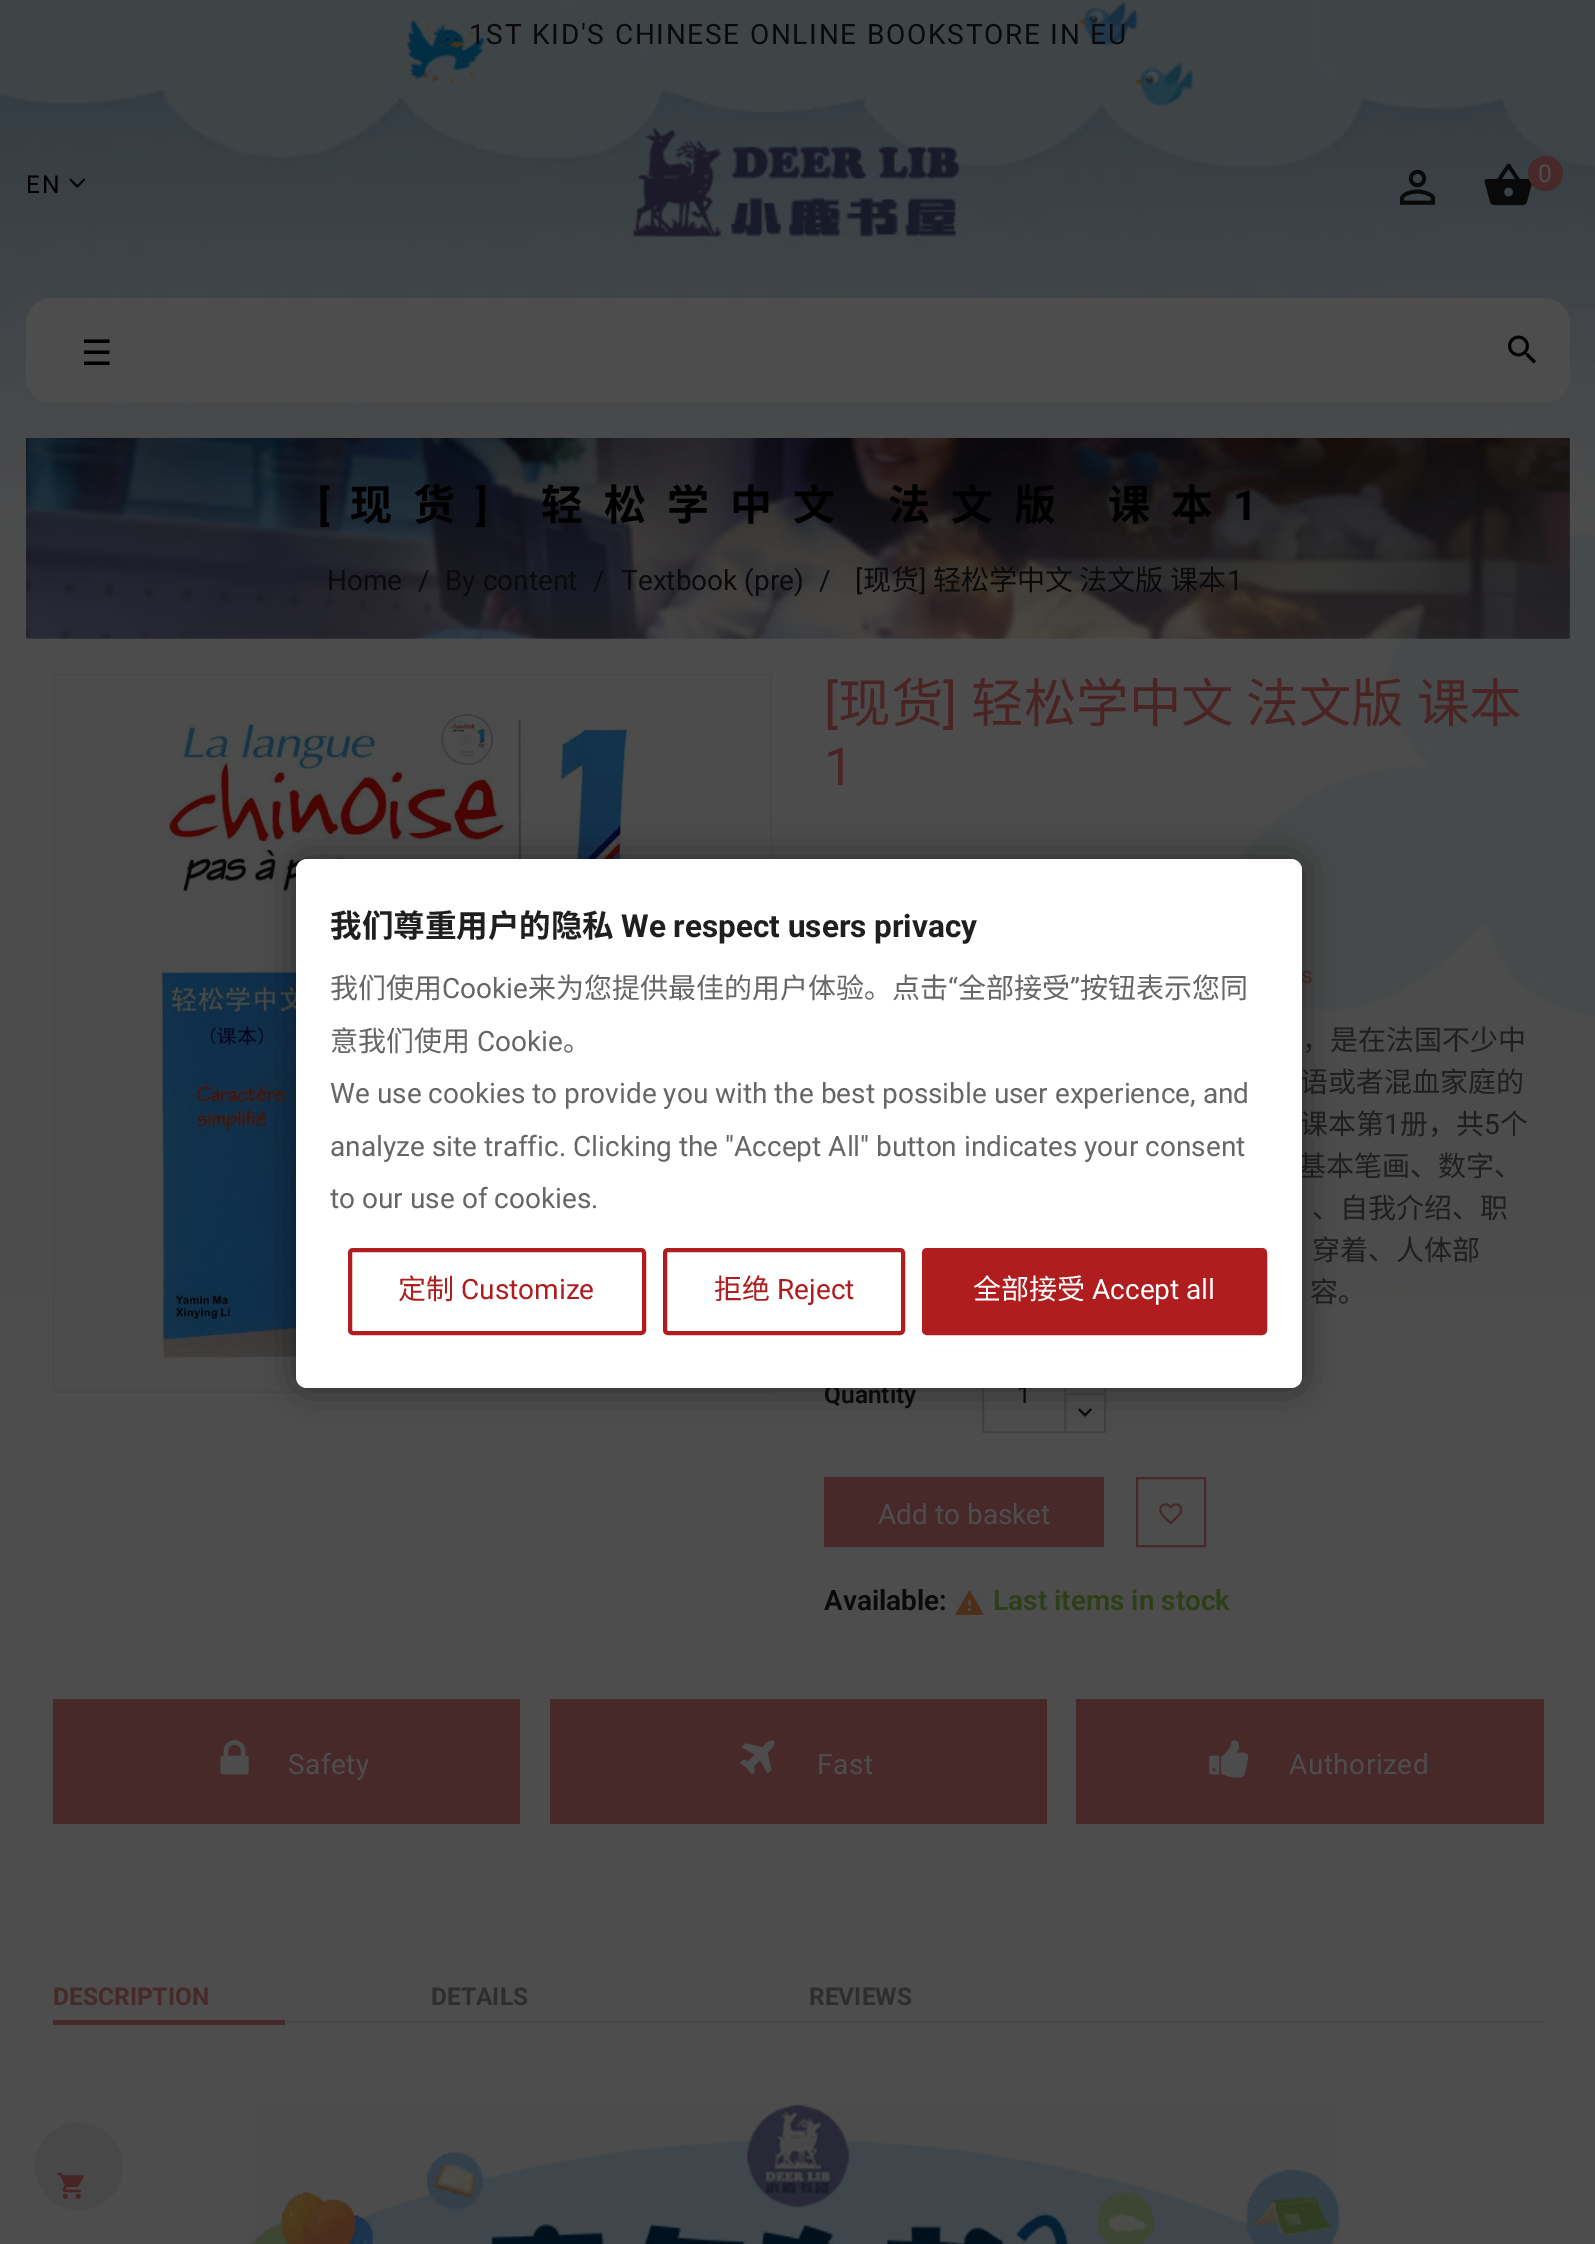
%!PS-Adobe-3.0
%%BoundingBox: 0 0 1595 2244
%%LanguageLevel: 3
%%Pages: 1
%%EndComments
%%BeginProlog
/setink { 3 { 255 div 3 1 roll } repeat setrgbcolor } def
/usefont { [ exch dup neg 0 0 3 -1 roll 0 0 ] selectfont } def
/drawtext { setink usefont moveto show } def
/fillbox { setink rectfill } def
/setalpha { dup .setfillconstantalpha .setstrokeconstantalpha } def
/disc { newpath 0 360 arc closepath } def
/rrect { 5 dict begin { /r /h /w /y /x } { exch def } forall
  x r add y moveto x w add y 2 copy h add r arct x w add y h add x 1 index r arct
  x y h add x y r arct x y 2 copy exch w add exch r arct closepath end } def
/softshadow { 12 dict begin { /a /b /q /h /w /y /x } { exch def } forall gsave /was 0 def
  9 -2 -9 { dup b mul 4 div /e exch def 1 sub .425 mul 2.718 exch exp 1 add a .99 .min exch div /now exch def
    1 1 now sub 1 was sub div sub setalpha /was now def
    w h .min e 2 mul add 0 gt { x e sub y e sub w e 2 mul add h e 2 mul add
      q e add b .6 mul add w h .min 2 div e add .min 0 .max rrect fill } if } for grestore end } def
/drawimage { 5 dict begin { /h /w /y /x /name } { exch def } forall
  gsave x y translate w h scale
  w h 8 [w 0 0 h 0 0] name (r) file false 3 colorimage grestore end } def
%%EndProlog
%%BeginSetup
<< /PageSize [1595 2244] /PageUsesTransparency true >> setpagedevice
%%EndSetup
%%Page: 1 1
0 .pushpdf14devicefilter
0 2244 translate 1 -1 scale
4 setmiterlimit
0 0 1595 2244 77 77 77 fillbox
(assets/img1.rgb) 0 0 1595 1299 drawimage
/Roboto-Regular 28 usefont
10 10 10 setink
469 44 moveto 1.75 0 (1ST KID'S CHINESE ONLINE BOOKSTORE IN EU) ashow
/Roboto-Regular 24.5 usefont
0 0 0 setink
26 193 moveto 1.75 0 (EN) ashow
(assets/img2.rgb) 69 178 16 10 drawimage
(assets/img3.rgb) 633 127 327 110 drawimage
(assets/img4.rgb) 1399 169 37 36 drawimage
(assets/img5.rgb) 1484 163 48 43 drawimage
72 41 42 setink
1545.5 173.5 17.5 disc fill
(0) 1538 182 /Roboto-Regular 24.5 77 77 77 drawtext
26 298 1544 105 26 rrect fill
(☰) 81 365 /DejaVuSans-Regular 35 0 0 0 drawtext
(assets/img6.rgb) 1508 335 28 29 drawimage
(assets/img7.rgb) 26 438 1544 201 drawimage
/Roboto-Bold 42 usefont
318 520 moveto 21 0 ([) ashow
/NotoSansCJKSC-Bold 42 usefont
350 520 moveto 21 0 (现货) ashow
/Roboto-Bold 42 usefont
476 520 moveto 21 0 (]) ashow
/NotoSansCJKSC-Bold 42 usefont
541 520 moveto 1 0 32 21 0 (轻松学中文 法文版 课本) awidthshow
/Roboto-Bold 42 usefont
1233 520 moveto 21 0 (1) ashow
(Home) 327 590 /Roboto-Regular 28 10 10 10 drawtext
(/) 418 590 /Roboto-Regular 28 10 10 10 drawtext
(By content) 445 590 /Roboto-Regular 28 10 10 10 drawtext
(/) 593 590 /Roboto-Regular 28 10 10 10 drawtext
(Textbook \(pre\)) 621 590 /Roboto-Regular 28 10 10 10 drawtext
(/) 819 590 /Roboto-Regular 28 10 10 10 drawtext
([) 855 590 /Roboto-Regular 28 10 10 10 drawtext
(现货) 863 590 /NotoSansCJKSC-Regular 28 10 10 10 drawtext
(]) 919 590 /Roboto-Regular 28 10 10 10 drawtext
(轻松学中文 法文版 课本) 933 590 /NotoSansCJKSC-Regular 28 10 10 10 drawtext
(1) 1227 590 /Roboto-Regular 28 10 10 10 drawtext
72 72 72 setink
2 setlinewidth
54 675 717 717 rectstroke
(assets/img8.rgb) 54 675 716 716 drawimage
([) 824 722 /Roboto-Regular 52.5 74 36 36 drawtext
(现货) 838 722 /NotoSansCJKSC-Regular 52.5 74 36 36 drawtext
(]) 943 722 /Roboto-Regular 52.5 74 36 36 drawtext
/NotoSansCJKSC-Regular 52.5 usefont
971 722 moveto 1 0 32 (轻松学中文 法文版 课本) widthshow
(1) 824 785 /Roboto-Regular 52.5 74 36 36 drawtext
(s) 1301 983 /Roboto-Regular 23 72 41 42 drawtext
(，是在法国不少中) 1302 1050 /NotoSansCJKSC-Regular 28 31 31 31 drawtext
(语或者混血家庭的) 1300 1092 /NotoSansCJKSC-Regular 28 31 31 31 drawtext
(课本第) 1300 1134 /NotoSansCJKSC-Regular 28 31 31 31 drawtext
(1) 1384 1134 /Roboto-Regular 28 31 31 31 drawtext
(册，共) 1400 1134 /NotoSansCJKSC-Regular 28 31 31 31 drawtext
(5) 1484 1134 /Roboto-Regular 28 31 31 31 drawtext
(个) 1500 1134 /NotoSansCJKSC-Regular 28 31 31 31 drawtext
(基本笔画、数字、) 1298 1176 /NotoSansCJKSC-Regular 28 31 31 31 drawtext
(、自我介绍、职) 1312 1218 /NotoSansCJKSC-Regular 28 31 31 31 drawtext
(穿着、人体部) 1312 1260 /NotoSansCJKSC-Regular 28 31 31 31 drawtext
(容。) 1310 1302 /NotoSansCJKSC-Regular 28 31 31 31 drawtext
(Quantity) 824 1403 /Roboto-SemiBold 24.5 10 10 10 drawtext
65 65 65 setink
983 1357 82 75 rectstroke
(1) 1017 1403 /Roboto-Regular 24.5 10 10 10 drawtext
65 65 65 setink
1065 1357 40 39 rectstroke
1066 1395 38 2 77 77 77 fillbox
65 65 65 setink
1065 1394 40 38 rectstroke
(assets/img9.rgb) 1078 1408 14 9 drawimage
824 1477 280 70 72 41 42 fillbox
(Add to basket) 878 1524 /Roboto-Regular 28 77 77 77 drawtext
72 41 42 setink
1137 1478 68 68 rectstroke
(assets/img10.rgb) 1159 1503 24 22 drawimage
(Available:) 824 1610 /Roboto-SemiBold 28 10 10 10 drawtext
(assets/img11.rgb) 955 1590 29 25 drawimage
(Last items in stock) 993 1610 /Roboto-SemiBold 28 46 62 23 drawtext
53 1699 467 125 72 41 42 fillbox
(assets/img12.rgb) 220 1740 29 35 drawimage
/Roboto-Regular 28 usefont
77 77 77 setink
288 1774 moveto 0.5 0 (Safety) ashow
550 1699 497 125 72 41 42 fillbox
(assets/img13.rgb) 740 1740 35 35 drawimage
77 77 77 setink
817 1774 moveto 0.5 0 (Fast) ashow
1076 1699 468 125 72 41 42 fillbox
(assets/img14.rgb) 1209 1740 40 38 drawimage
77 77 77 setink
1289 1774 moveto 0.5 0 (Authorized) ashow
285 2021 1259 2 72 72 72 fillbox
53 2020 232 5 72 41 42 fillbox
(DESCRIPTION) 53 2005 /Roboto-Bold 24.5 72 41 42 drawtext
(DETAILS) 431 2005 /Roboto-Bold 24.5 46 46 46 drawtext
(REVIEWS) 809 2005 /Roboto-Bold 24.5 46 46 46 drawtext
(assets/img15.rgb) 250 2104 1090 140 drawimage
0 0 0 setink
296 859 1006 529 11 17.5 0.4 softshadow
255 255 255 setink
296 859 1006 529 11 rrect fill
(我们尊重用户的隐私) 330 937 /NotoSansCJKSC-Bold 31.5 31 31 31 drawtext
(We respect users privacy) 621 937 /Roboto-Bold 31.5 31 31 31 drawtext
(我们使用) 330 998 /NotoSansCJKSC-Regular 28 102 102 102 drawtext
(Cookie) 442 998 /Roboto-Regular 28 102 102 102 drawtext
(来为您提供最佳的用户体验。点击) 528 998 /NotoSansCJKSC-Regular 28 102 102 102 drawtext
(“) 948 998 /Roboto-Regular 28 102 102 102 drawtext
(全部接受) 958 998 /NotoSansCJKSC-Regular 28 102 102 102 drawtext
(”) 1070 998 /Roboto-Regular 28 102 102 102 drawtext
(按钮表示您同) 1080 998 /NotoSansCJKSC-Regular 28 102 102 102 drawtext
(意我们使用) 330 1051 /NotoSansCJKSC-Regular 28 102 102 102 drawtext
(Cookie) 477 1051 /Roboto-Regular 28 102 102 102 drawtext
(。) 563 1051 /NotoSansCJKSC-Regular 28 102 102 102 drawtext
(We use cookies to provide you with the best possible user experience, and) 330 1103 /Roboto-Regular 28 102 102 102 drawtext
(analyze site traffic. Clicking the "Accept All" button indicates your consent) 330 1156 /Roboto-Regular 28 102 102 102 drawtext
(to our use of cookies.) 330 1208 /Roboto-Regular 28 102 102 102 drawtext
175 29 31 setink
4 setlinewidth
350 1250 294 83 3 rrect stroke
(定制) 398 1299 /NotoSansCJKSC-Regular 28 175 29 31 drawtext
(Customize) 461 1299 /Roboto-Regular 28 175 29 31 drawtext
665 1250 238 83 3 rrect stroke
(拒绝) 714 1299 /NotoSansCJKSC-Regular 28 175 29 31 drawtext
(Reject) 777 1299 /Roboto-Regular 28 175 29 31 drawtext
924 1250 341 83 3 rrect gsave fill grestore
stroke
(全部接受) 973 1299 /NotoSansCJKSC-Regular 28 255 255 255 drawtext
(Accept all) 1092 1299 /Roboto-Regular 28 255 255 255 drawtext
72 72 72 setink
35 2123 88 87 43.5 rrect fill
(assets/img16.rgb) 57 2172 27 27 drawimage
.poppdf14devicefilter showpage
%%EOF
